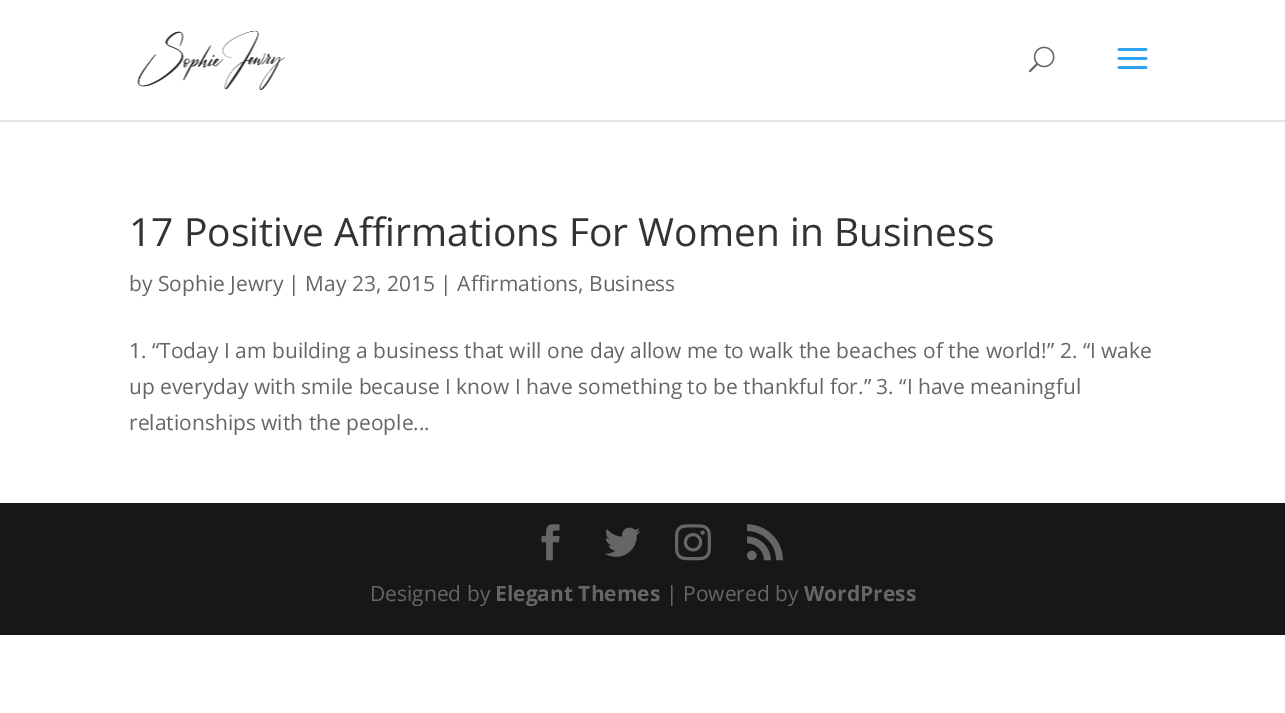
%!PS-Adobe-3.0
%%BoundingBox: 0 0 1285 713
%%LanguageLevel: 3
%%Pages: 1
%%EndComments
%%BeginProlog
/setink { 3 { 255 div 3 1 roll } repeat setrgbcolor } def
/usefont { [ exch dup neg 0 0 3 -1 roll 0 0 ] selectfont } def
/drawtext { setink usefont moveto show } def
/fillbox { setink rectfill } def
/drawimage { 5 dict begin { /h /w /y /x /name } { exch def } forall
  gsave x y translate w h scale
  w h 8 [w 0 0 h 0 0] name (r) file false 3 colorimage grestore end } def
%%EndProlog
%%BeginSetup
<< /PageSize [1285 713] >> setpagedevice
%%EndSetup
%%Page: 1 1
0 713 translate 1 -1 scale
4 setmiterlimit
0 0 1285 713 255 255 255 fillbox
230 230 230 setink
0 120 moveto 0 122 lineto 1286 122 lineto 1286 2 lineto 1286 120 lineto closepath fill
(assets/img1.rgb) 137 30 149 60 drawimage
(assets/img2.rgb) 1028 46 27 27 drawimage
(assets/img3.rgb) 1117 48 31 21 drawimage
(17 Positive Affirmations For Women in Business) 129 246 /OpenSans-Regular 39 51 51 51 drawtext
(by Sophie Jewry | May 23, 2015 | Affirmations, Business) 129 291 /OpenSans-Regular 21 102 102 102 drawtext
(1. “Today I am building a business that will one day allow me to walk the beaches of the world!” 2. “I wake) 129 358 /OpenSans-Regular 21 102 102 102 drawtext
(up everyday with smile because I know I have something to be thankful for.” 3. “I have meaningful) 129 394 /OpenSans-Regular 21 102 102 102 drawtext
(relationships with the people...) 129 430 /OpenSans-Regular 21 102 102 102 drawtext
0 503 1285 132 23 23 23 fillbox
(assets/img4.rgb) 541 524 19 37 drawimage
(assets/img5.rgb) 604 527 37 30 drawimage
(assets/img6.rgb) 675 524 36 37 drawimage
(assets/img7.rgb) 747 524 36 37 drawimage
(Designed by) 370 601 /OpenSans-Regular 21 102 102 102 drawtext
(Elegant Themes) 495 601 /OpenSans-Bold 21 102 102 102 drawtext
(| Powered by) 666 601 /OpenSans-Regular 21 102 102 102 drawtext
(WordPress) 804 601 /OpenSans-Bold 21 102 102 102 drawtext
showpage
%%EOF
